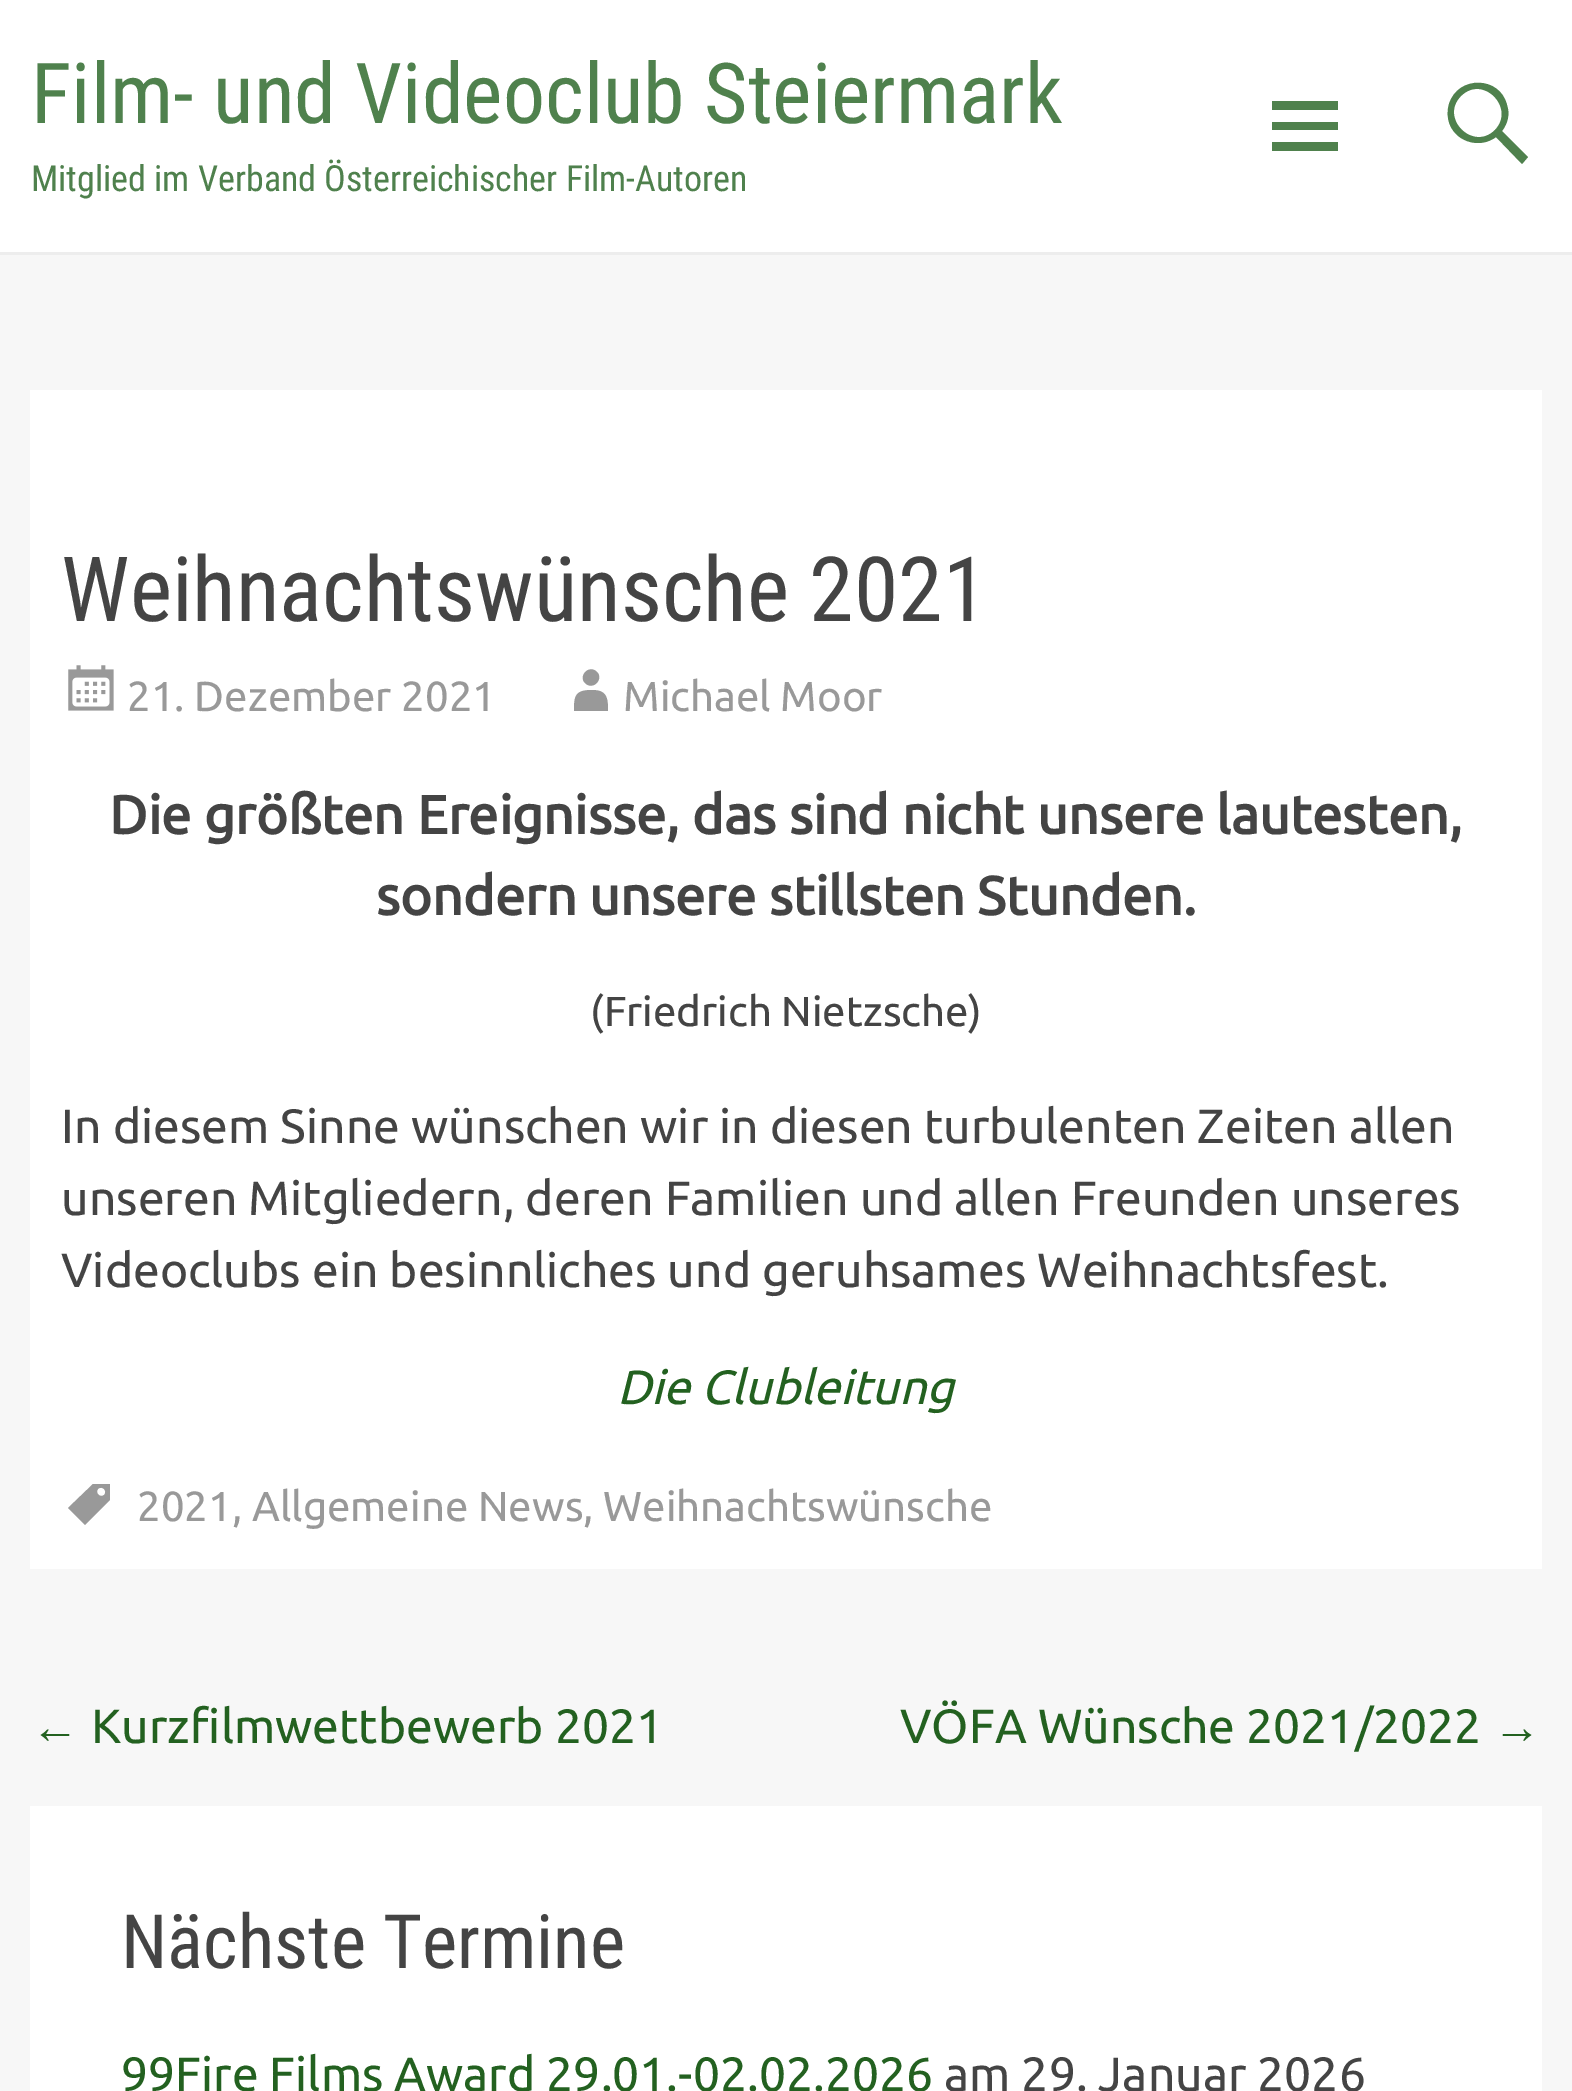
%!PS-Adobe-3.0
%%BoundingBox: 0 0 1572 2091
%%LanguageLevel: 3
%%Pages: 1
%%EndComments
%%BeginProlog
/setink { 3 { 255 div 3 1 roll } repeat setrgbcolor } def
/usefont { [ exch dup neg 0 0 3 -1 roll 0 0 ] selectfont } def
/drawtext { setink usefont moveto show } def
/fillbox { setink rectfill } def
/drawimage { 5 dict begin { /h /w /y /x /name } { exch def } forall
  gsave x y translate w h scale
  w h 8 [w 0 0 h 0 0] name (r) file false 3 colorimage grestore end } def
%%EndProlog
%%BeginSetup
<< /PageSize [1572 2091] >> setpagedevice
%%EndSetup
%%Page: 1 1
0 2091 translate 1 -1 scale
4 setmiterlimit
0 0 1572 2091 255 255 255 fillbox
0 252 1572 3 237 237 237 fillbox
(Film- und Videoclub Steiermark) 31 123 /RobotoCondensed-Regular 84 79 129 77 drawtext
(Mitglied im Verband Österreichischer Film-Autoren) 31 191 /RobotoCondensed-Regular 36 79 129 77 drawtext
1272 151 moveto 1272 142 lineto 1338 142 lineto 1338 151 lineto closepath 1272 130 moveto 1272 122 lineto 1338 122 lineto 1338 130 lineto closepath 1272 110 moveto 1272 101 lineto 1338 101 lineto 1338 110 lineto closepath fill
1450 125 moveto 1447 118 1447 111 1449 104 curveto 1458 75 1500 76 1507 105 curveto 1510 114 1508 123 1502 131 curveto 1528 157 lineto 1522 164 lineto 1496 137 lineto 1480 149 1457 142 1450 125 curveto closepath 1461 96 moveto 1439 118 1473 152 1495 130 curveto 1516 108 1483 74 1461 96 curveto closepath fill
0 255 1572 1836 247 247 247 fillbox
30 390 1512 1179 255 255 255 fillbox
(Weihnachtswünsche 2021) 61 621 /RobotoCondensed-Regular 90 68 68 68 drawtext
(assets/img1.rgb) 68 665 46 46 drawimage
(21. Dezember 2021) 127 711 /Ubuntu-Regular 42 153 153 153 drawtext
574 711 moveto 574 696 575 690 592 690 curveto 607 690 608 698 608 711 curveto closepath 585 683 moveto 578 676 589 664 597 672 curveto 604 679 593 691 585 683 curveto closepath fill
(Michael Moor) 623 711 /Ubuntu-Regular 42 153 153 153 drawtext
(Die größten Ereignisse, das sind nicht unsere lautesten,) 109 834 /Ubuntu-Bold 54 68 68 68 drawtext
(sondern unsere stillsten Stunden.) 376 915 /Ubuntu-Bold 54 68 68 68 drawtext
(\(Friedrich Nietzsche\)) 590 1026 /Ubuntu-Regular 42 68 68 68 drawtext
(In diesem Sinne wünschen wir in diesen turbulenten Zeiten allen) 61 1143 /Ubuntu-Regular 48 68 68 68 drawtext
(unseren Mitgliedern, deren Familien und allen Freunden unseres) 61 1215 /Ubuntu-Regular 48 68 68 68 drawtext
(Videoclubs ein besinnliches und geruhsames Weihnachtsfest.) 61 1287 /Ubuntu-Regular 48 68 68 68 drawtext
(Die Clubleitung) 617 1404 /Ubuntu-Italic 48 35 97 32 drawtext
153 153 153 setink
68 1508 moveto 93 1484 lineto 110 1484 lineto 110 1500 lineto 85 1525 lineto closepath 98 1489 moveto 95 1493 100 1498 104 1495 curveto 108 1491 102 1485 98 1489 curveto closepath fill
(2021, Allgemeine News, Weihnachtswünsche) 137 1521 /Ubuntu-Regular 42 153 153 153 drawtext
(←) 31 1743 /LiberationSerif-Regular 48 35 97 32 drawtext
(Kurzfilmwettbewerb 2021) 91 1743 /Ubuntu-Regular 48 35 97 32 drawtext
(VÖFA Wünsche 2021/2022) 900 1743 /Ubuntu-Regular 48 35 97 32 drawtext
(→) 1493 1743 /LiberationSerif-Regular 48 35 97 32 drawtext
30 1806 1512 285 255 255 255 fillbox
(Nächste Termine) 121 1968 /RobotoCondensed-Regular 75 68 68 68 drawtext
(99Fire Films Award 29.01.-02.02.2026) 121 2091 /Ubuntu-Regular 48 35 97 32 drawtext
(am 29. Januar 2026) 944 2091 /Ubuntu-Regular 48 68 68 68 drawtext
showpage
%%EOF
